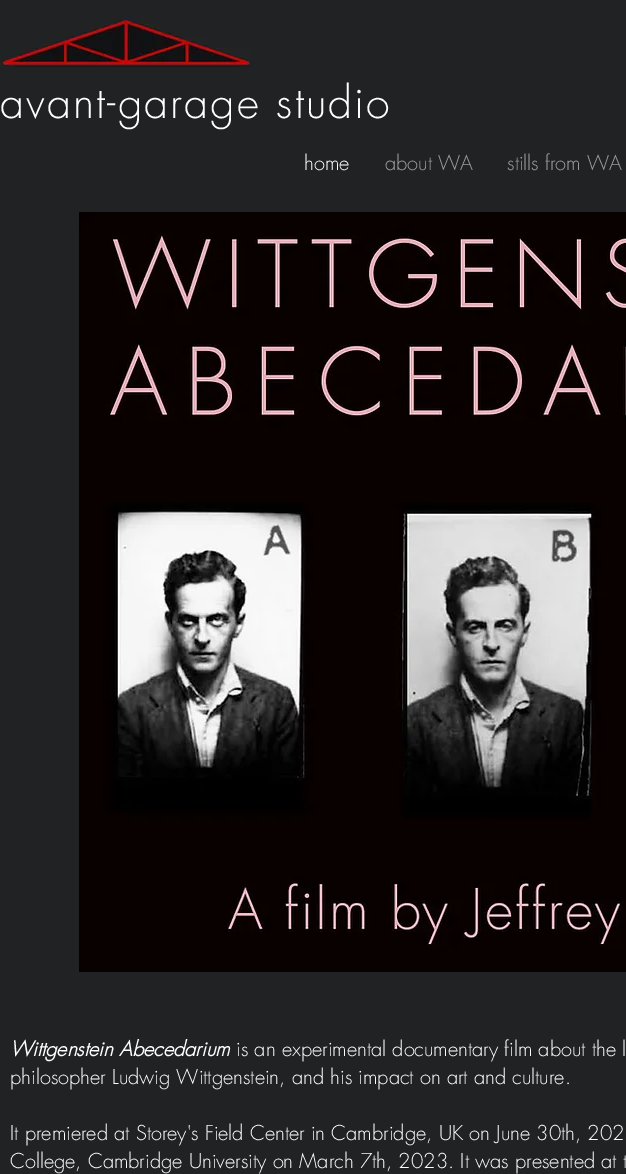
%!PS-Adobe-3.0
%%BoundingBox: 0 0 626 1174
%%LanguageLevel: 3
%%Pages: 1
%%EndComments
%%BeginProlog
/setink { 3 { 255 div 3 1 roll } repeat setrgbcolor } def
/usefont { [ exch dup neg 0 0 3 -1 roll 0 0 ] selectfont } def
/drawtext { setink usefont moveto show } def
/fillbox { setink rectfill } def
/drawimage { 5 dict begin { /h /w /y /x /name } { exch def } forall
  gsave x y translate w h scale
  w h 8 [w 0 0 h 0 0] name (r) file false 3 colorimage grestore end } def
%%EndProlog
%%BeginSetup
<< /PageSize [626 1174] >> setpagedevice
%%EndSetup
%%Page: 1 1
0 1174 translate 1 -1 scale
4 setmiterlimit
0 0 626 1174 32 34 35 fillbox
(assets/img1.rgb) 0 16 251 51 drawimage
/futura-Light 43 usefont
255 255 255 setink
0 118 moveto 2.1 0 (avant-garage studio) ashow
(home) 304 170 /futura-Light 20 255 255 255 drawtext
(about WA) 385 170 /futura-Light 20 158 158 158 drawtext
(stills from WA) 507 170 /futura-Light 20 158 158 158 drawtext
(assets/img2.rgb) 79 212 547 760 drawimage
(Wittgenstein Abecedarium) 10 1056 /futura-BoldItalic 20 255 255 255 drawtext
(is an experimental documentary film about the l) 236 1056 /futura-Light 20 255 255 255 drawtext
(philosopher Ludwig Wittgenstein, and his impact on art and culture.) 10 1084 /futura-Light 20 255 255 255 drawtext
(It premiered at Storey's Field Center in Cambridge, UK on June 30th, 202) 10 1140 /futura-Light 20 255 255 255 drawtext
(College, Cambridge University on March 7th, 2023. It was presented at t) 10 1168 /futura-Light 20 255 255 255 drawtext
showpage
%%EOF
